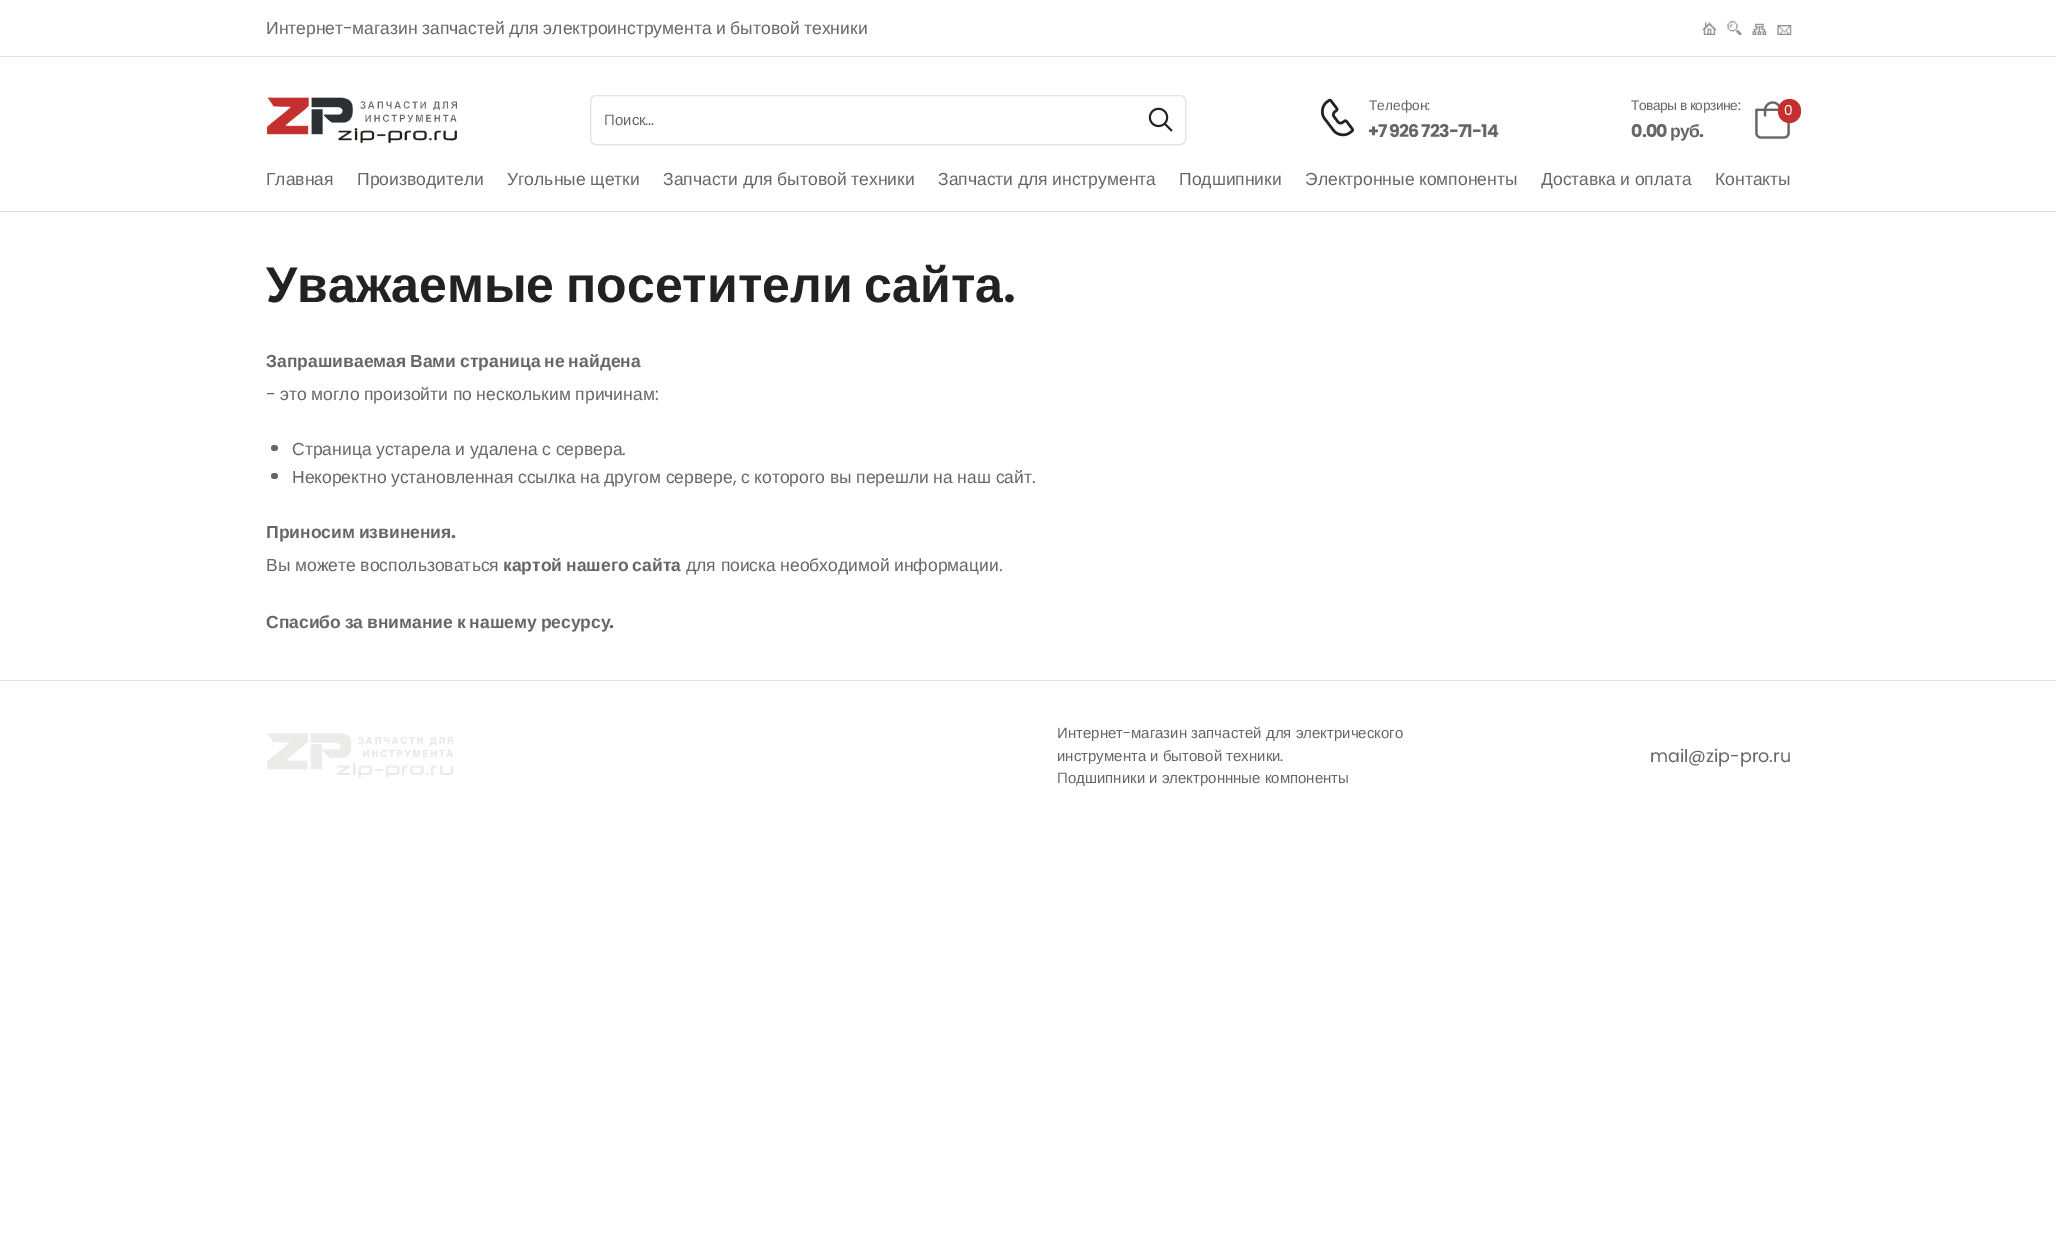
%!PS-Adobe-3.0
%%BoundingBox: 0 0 2056 1254
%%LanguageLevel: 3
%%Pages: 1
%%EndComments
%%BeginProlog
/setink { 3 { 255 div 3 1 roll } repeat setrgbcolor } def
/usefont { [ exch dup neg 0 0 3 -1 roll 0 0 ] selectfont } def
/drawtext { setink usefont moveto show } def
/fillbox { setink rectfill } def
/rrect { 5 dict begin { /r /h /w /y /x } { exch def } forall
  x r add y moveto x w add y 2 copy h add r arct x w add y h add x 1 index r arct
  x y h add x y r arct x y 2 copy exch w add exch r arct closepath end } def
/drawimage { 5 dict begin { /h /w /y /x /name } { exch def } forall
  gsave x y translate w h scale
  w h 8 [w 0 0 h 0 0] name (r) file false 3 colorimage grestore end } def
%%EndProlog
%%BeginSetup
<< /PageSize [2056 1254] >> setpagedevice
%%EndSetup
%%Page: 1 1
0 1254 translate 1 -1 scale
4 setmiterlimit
0 0 2056 1254 255 255 255 fillbox
0 56 2056 1 225 225 225 fillbox
(Интернет) 266 34 /LiberationSans-Regular 17.5 102 102 102 drawtext
(-) 343 34 /Poppins-Regular 17.5 102 102 102 drawtext
/LiberationSans-Regular 17.5 usefont
352 34 moveto -0.25 0 32 (магазин запчастей для электроинструмента и бытовой техники) widthshow
(assets/img1.rgb) 1702 22 15 13 drawimage
(assets/img2.rgb) 1727 21 15 14 drawimage
(assets/img3.rgb) 1752 23 15 12 drawimage
(assets/img4.rgb) 1777 25 15 10 drawimage
0 211 2056 1 225 225 225 fillbox
(assets/img5.rgb) 267 97 190 46 drawimage
227 227 227 setink
590.5 95.5 595 49 5.5 rrect stroke
(Поиск) 604 125 /LiberationSans-Regular 15 102 102 102 drawtext
(...) 645 125 /Poppins-Regular 15 102 102 102 drawtext
(assets/img6.rgb) 1148 107 25 25 drawimage
(Телефон) 1369 110 /LiberationSans-Regular 13.75 102 102 102 drawtext
(:) 1427 110 /Poppins-Regular 13.75 102 102 102 drawtext
(assets/img7.rgb) 1320 98 34 39 drawimage
/Poppins-Bold 17.5 usefont
1368 137 moveto -0.9 0 (+7 926 723-71-14) ashow
/LiberationSans-Regular 13.75 usefont
1631 110 moveto -0.5 0 (Товары в корзине) ashow
/Poppins-Regular 13.75 usefont
1738 110 moveto -0.5 0 (:) ashow
/Poppins-Bold 17.5 usefont
1631 137 moveto -0.9 0 (0.00) ashow
/LiberationSans-Bold 17.5 usefont
1670 137 moveto -0.9 0 (руб) ashow
/Poppins-Bold 17.5 usefont
1699 137 moveto -0.9 0 (.) ashow
(assets/img8.rgb) 1755 101 35 38 drawimage
196 48 47 setink
1778 99 23 24 11.5 rrect fill
(0) 1784 115 /Poppins-Regular 13.75 255 255 255 drawtext
(Главная) 266 185 /LiberationSans-Regular 17.5 102 102 102 drawtext
(Производители) 357 185 /LiberationSans-Regular 17.5 102 102 102 drawtext
507 185 moveto -0.25 0 32 (Угольные щетки) widthshow
663 185 moveto -0.25 0 32 (Запчасти для бытовой техники) widthshow
938 185 moveto -0.25 0 32 (Запчасти для инструмента) widthshow
(Подшипники) 1179 185 /LiberationSans-Regular 17.5 102 102 102 drawtext
1305 185 moveto -0.25 0 32 (Электронные компоненты) widthshow
1541 185 moveto -0.25 0 32 (Доставка и оплата) widthshow
(Контакты) 1715 185 /LiberationSans-Regular 17.5 102 102 102 drawtext
/LiberationSans-Bold 50 usefont
34 34 34 setink
266 302 moveto -2 0 32 (Уважаемые посетители сайта) widthshow
(.) 1003 302 /Poppins-SemiBold 50 34 34 34 drawtext
/LiberationSans-Bold 17.5 usefont
102 102 102 setink
266 367 moveto -1 0 32 (Запрашиваемая Вами страница не найдена) widthshow
(-) 266 400 /Poppins-Regular 17.5 102 102 102 drawtext
/LiberationSans-Regular 17.5 usefont
280 400 moveto -0.25 0 32 (это могло произойти по нескольким причинам) widthshow
(:) 655 400 /Poppins-Regular 17.5 102 102 102 drawtext
271 445 7 6 3 rrect fill
/LiberationSans-Regular 17.5 usefont
292 455 moveto -0.25 0 32 (Страница устарела и удалена с сервера) widthshow
(.) 622 455 /Poppins-Regular 17.5 102 102 102 drawtext
271 473 7 6 3 rrect fill
/LiberationSans-Regular 17.5 usefont
292 483 moveto -0.25 0 32 (Некоректно установленная ссылка на другом сервере) widthshow
741 483 moveto -0.25 0 32 (с которого вы перешли на наш сайт) widthshow
(,) 733 483 /Poppins-Regular 17.5 102 102 102 drawtext
(.) 1032 483 /Poppins-Regular 17.5 102 102 102 drawtext
/LiberationSans-Bold 17.5 usefont
266 538 moveto -1 0 32 (Приносим извинения) widthshow
(.) 451 538 /Poppins-Bold 17.5 102 102 102 drawtext
/LiberationSans-Regular 17.5 usefont
266 571 moveto -0.25 0 32 (Вы можете воспользоваться) widthshow
/LiberationSans-Bold 17.5 usefont
503 571 moveto -1 0 32 (картой нашего сайта) widthshow
/LiberationSans-Regular 17.5 usefont
686 571 moveto -0.25 0 32 (для поиска необходимой информации) widthshow
(.) 999 571 /Poppins-Regular 17.5 102 102 102 drawtext
/LiberationSans-Bold 17.5 usefont
266 628 moveto -1 0 32 (Спасибо за внимание к нашему ресурсу) widthshow
(.) 609 628 /Poppins-Bold 17.5 102 102 102 drawtext
0 680 2056 1 225 225 225 fillbox
(assets/img9.rgb) 267 733 186 45 drawimage
(Интернет) 1057 738 /LiberationSans-Regular 15 102 102 102 drawtext
(-) 1123 738 /Poppins-Regular 15 102 102 102 drawtext
(магазин запчастей для электрического) 1131 738 /LiberationSans-Regular 15 102 102 102 drawtext
(инструмента и бытовой техники) 1057 761 /LiberationSans-Regular 15 102 102 102 drawtext
(.) 1280 761 /Poppins-Regular 15 102 102 102 drawtext
(Подшипники и электроннные компоненты) 1057 783 /LiberationSans-Regular 15 102 102 102 drawtext
(mail@zip-pro.ru) 1650 762 /Poppins-Regular 17.5 102 102 102 drawtext
showpage
%%EOF
